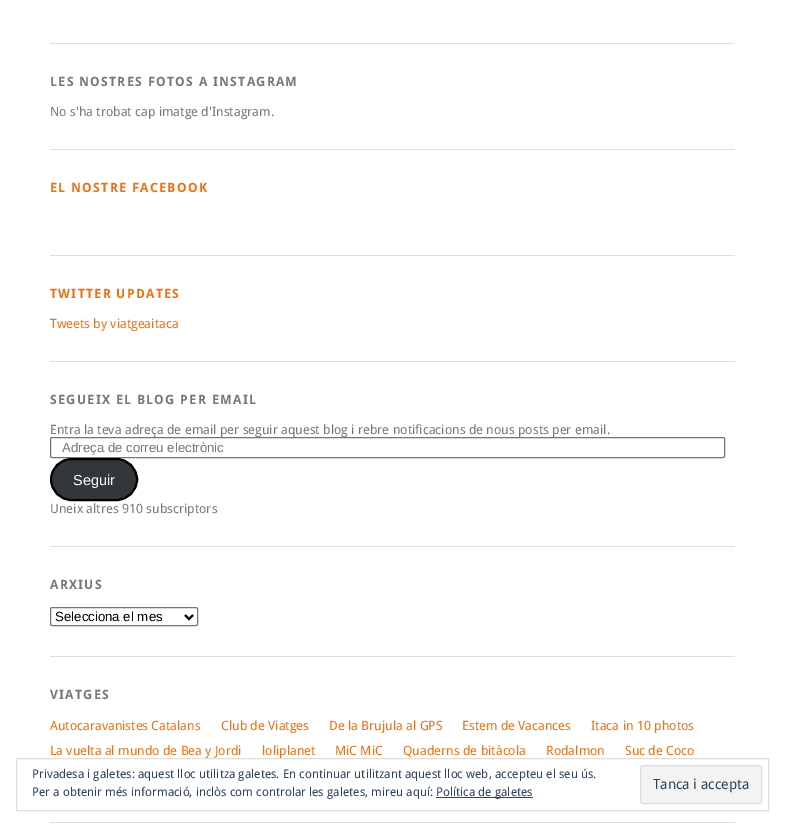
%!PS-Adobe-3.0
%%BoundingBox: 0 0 785 827
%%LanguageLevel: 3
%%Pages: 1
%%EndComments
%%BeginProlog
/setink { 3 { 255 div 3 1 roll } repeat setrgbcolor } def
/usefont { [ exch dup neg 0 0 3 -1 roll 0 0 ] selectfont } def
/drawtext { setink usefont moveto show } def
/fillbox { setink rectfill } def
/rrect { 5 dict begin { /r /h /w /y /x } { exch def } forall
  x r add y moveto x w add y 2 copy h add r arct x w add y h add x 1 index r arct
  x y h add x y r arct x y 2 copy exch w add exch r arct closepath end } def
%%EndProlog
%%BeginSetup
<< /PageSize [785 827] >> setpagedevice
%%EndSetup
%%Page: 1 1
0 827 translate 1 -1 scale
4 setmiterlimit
0 0 785 827 255 255 255 fillbox
50 43 685 1 221 221 221 fillbox
50 149 685 1 221 221 221 fillbox
/DroidSans-Bold 12.8 usefont
119 119 119 setink
50 86 moveto 1.25 0 (LES NOSTRES FOTOS A INSTAGRAM) ashow
(No s'ha trobat cap imatge d'Instagram.) 50 116 /DroidSans-Regular 12.8 119 119 119 drawtext
50 255 685 1 221 221 221 fillbox
/DroidSans-Bold 12.8 usefont
240 112 15 setink
50 192 moveto 1.25 0 (EL NOSTRE FACEBOOK) ashow
50 361 685 1 221 221 221 fillbox
240 112 15 setink
50 298 moveto 1.25 0 (TWITTER UPDATES) ashow
(Tweets by viatgeaitaca) 50 328 /DroidSans-Regular 12.8 240 112 15 drawtext
50 546 685 1 221 221 221 fillbox
/DroidSans-Bold 12.8 usefont
119 119 119 setink
50 404 moveto 1.25 0 (SEGUEIX EL BLOG PER EMAIL) ashow
(Entra la teva adreça de email per seguir aquest blog i rebre notificacions de nous posts per email.) 50 434 /DroidSans-Regular 12.8 119 119 119 drawtext
255 255 255 setink
50.5 437.5 674 20 1.5 rrect gsave fill grestore
118 118 118 setink
stroke
(Adreça de correu electrònic) 62 452 /LiberationSans-Regular 13.25 119 119 119 drawtext
50 55 60 setink
51 459 86 41 20.5 rrect gsave fill grestore
0 0 0 setink
2 setlinewidth
stroke
(Seguir) 73 485 /LiberationSans-Regular 14.5 255 255 255 drawtext
(Uneix altres 910 subscriptors) 50 513 /DroidSans-Regular 12.8 119 119 119 drawtext
50 656 685 1 221 221 221 fillbox
/DroidSans-Bold 12.8 usefont
119 119 119 setink
50 589 moveto 1.25 0 (ARXIUS) ashow
118 118 118 setink
1 setlinewidth
50.5 607.5 147 18 1.5 rrect stroke
0 0 0 setink
2 setlinewidth
185 615 moveto 189 619 lineto 193 615 lineto stroke
(Selecciona el mes) 55 621 /LiberationSans-Regular 13.25 0 0 0 drawtext
50 822 685 1 221 221 221 fillbox
/DroidSans-Bold 12.8 usefont
119 119 119 setink
50 699 moveto 1.25 0 (VIATGES) ashow
(Autocaravanistes Catalans) 50 730 /DroidSans-Regular 12.8 240 112 15 drawtext
(Club de Viatges) 221 730 /DroidSans-Regular 12.8 240 112 15 drawtext
(De la Brujula al GPS) 329 730 /DroidSans-Regular 12.8 240 112 15 drawtext
(Estem de Vacances) 462 730 /DroidSans-Regular 12.8 240 112 15 drawtext
(Itaca in 10 photos) 591 730 /DroidSans-Regular 12.8 240 112 15 drawtext
(La vuelta al mundo de Bea y Jordi) 50 755 /DroidSans-Regular 12.8 240 112 15 drawtext
(loliplanet) 262 755 /DroidSans-Regular 12.8 240 112 15 drawtext
(MiC MiC) 335 755 /DroidSans-Regular 12.8 240 112 15 drawtext
(Quaderns de bitàcola) 403 755 /DroidSans-Regular 12.8 240 112 15 drawtext
(Rodalmon) 546 755 /DroidSans-Regular 12.8 240 112 15 drawtext
(Suc de Coco) 625 755 /DroidSans-Regular 12.8 240 112 15 drawtext
222 222 222 setink
1 setlinewidth
16.5 758.5 752 52 rectstroke
(Privadesa i galetes: aquest lloc utilitza galetes. En continuar utilitzant aquest lloc web, accepteu el seu ús.) 32 778 /DroidSans-Regular 12 46 68 103 drawtext
(Per a obtenir més informació, inclòs com controlar les galetes, mireu aquí:) 32 796 /DroidSans-Regular 12 46 68 103 drawtext
436 797 97 1 46 68 103 fillbox
(Política de galetes) 436 796 /DroidSans-Regular 12 46 68 103 drawtext
243 243 243 setink
640.5 765.5 121 38 2.5 rrect gsave fill grestore
222 222 222 setink
stroke
(Tanca i accepta) 653 789 /DroidSans-Regular 14 46 68 83 drawtext
showpage
%%EOF
